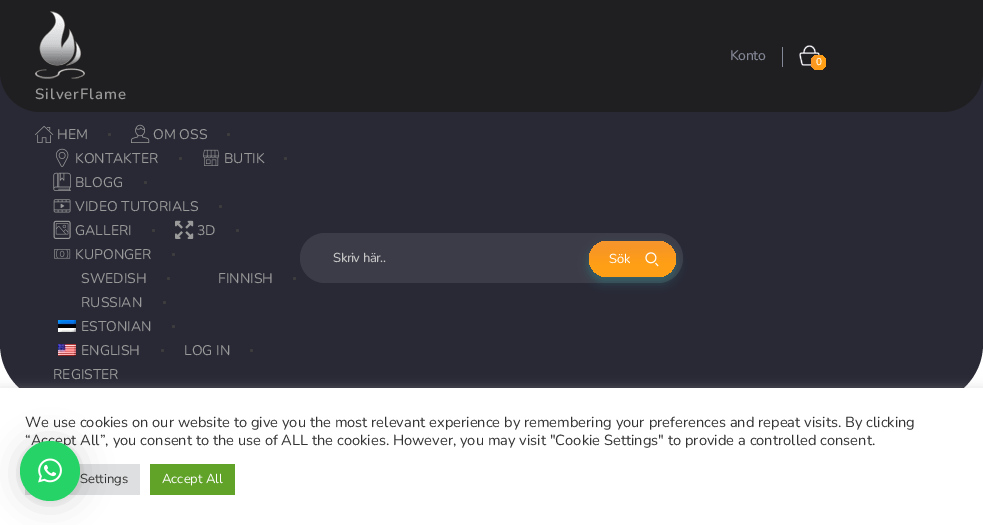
%!PS-Adobe-3.0
%%BoundingBox: 0 0 983 525
%%LanguageLevel: 3
%%Pages: 1
%%EndComments
%%BeginProlog
/setink { 3 { 255 div 3 1 roll } repeat setrgbcolor } def
/usefont { [ exch dup neg 0 0 3 -1 roll 0 0 ] selectfont } def
/drawtext { setink usefont moveto show } def
/fillbox { setink rectfill } def
/setalpha { dup .setfillconstantalpha .setstrokeconstantalpha } def
/disc { newpath 0 360 arc closepath } def
/rrect { 5 dict begin { /r /h /w /y /x } { exch def } forall
  x r add y moveto x w add y 2 copy h add r arct x w add y h add x 1 index r arct
  x y h add x y r arct x y 2 copy exch w add exch r arct closepath end } def
/softshadow { 12 dict begin { /a /b /q /h /w /y /x } { exch def } forall gsave /was 0 def
  9 -2 -9 { dup b mul 4 div /e exch def 1 sub .425 mul 2.718 exch exp 1 add a .99 .min exch div /now exch def
    1 1 now sub 1 was sub div sub setalpha /was now def
    w h .min e 2 mul add 0 gt { x e sub y e sub w e 2 mul add h e 2 mul add
      q e add b .6 mul add w h .min 2 div e add .min 0 .max rrect fill } if } for grestore end } def
/drawimage { 5 dict begin { /h /w /y /x /name } { exch def } forall
  gsave x y translate w h scale
  w h 8 [w 0 0 h 0 0] name (r) file false 3 colorimage grestore end } def
%%EndProlog
%%BeginSetup
<< /PageSize [983 525] /PageUsesTransparency true >> setpagedevice
%%EndSetup
%%Page: 1 1
0 .pushpdf14devicefilter
0 525 translate 1 -1 scale
4 setmiterlimit
0 0 983 525 255 255 255 fillbox
41 41 54 setink
0 48 moveto 983 48 lineto 983 344 lineto 983 377 956 404 923 404 curveto 60 404 lineto 27 404 0 377 0 344 curveto closepath fill
31 31 33 setink
0 0 moveto 983 0 lineto 983 72 lineto 983 94 965 112 943 112 curveto 40 112 lineto 18 112 0 94 0 72 curveto closepath fill
/Nunito-Medium 14 usefont
133 137 151 setink
730 60 moveto -0.5 0 (Konto) ashow
(assets/img1.rgb) 799 45 21 21 drawimage
782 47 1 20 133 137 151 fillbox
gsave 818.5 62.5 7.5 disc clip newpath
<< /ShadingType 2 /ColorSpace /DeviceRGB /Coords [810 61 827 64] /Extend [true true] /Function << /FunctionType 3 /Domain [0 1] /Functions [<< /FunctionType 2 /Domain [0 1] /C0 [0.965 0.584 0.161] /C1 [1 0.624 0.082] /N 1 >> << /FunctionType 2 /Domain [0 1] /C0 [1 0.624 0.082] /C1 [1 0.624 0.082] /N 1 >>] /Bounds [0.68] /Encode [0 1 0 1] >> >> shfill grestore
(0) 816 65 /Nunito-Medium 10 255 255 255 drawtext
(assets/img2.rgb) 35 11 50 68 drawimage
/Nunito-SemiBold 15 usefont
154 154 154 setink
35 99 moveto 1 0 (SilverFlame) ashow
(assets/img3.rgb) 35 125 19 18 drawimage
(HEM) 57 139 /Nunito-Regular 14 154 154 154 drawtext
61 61 61 setink
109.5 134.5 1.5 disc fill
(assets/img4.rgb) 131 124 19 19 drawimage
(OM OSS) 153 139 /Nunito-Regular 14 154 154 154 drawtext
61 61 61 setink
228.5 134.5 1.5 disc fill
(assets/img5.rgb) 55 148 14 19 drawimage
(KONTAKTER) 75 163 /Nunito-Regular 14 154 154 154 drawtext
61 61 61 setink
180.5 158.5 1.5 disc fill
(assets/img6.rgb) 203 149 17 17 drawimage
(BUTIK) 224 163 /Nunito-Regular 14 154 154 154 drawtext
61 61 61 setink
285.5 158.5 1.5 disc fill
(assets/img7.rgb) 53 172 18 19 drawimage
(BLOGG) 75 187 /Nunito-Regular 14 154 154 154 drawtext
61 61 61 setink
145.5 182.5 1.5 disc fill
(assets/img8.rgb) 53 199 18 14 drawimage
(VIDEO TUTORIALS) 75 211 /Nunito-Regular 14 154 154 154 drawtext
61 61 61 setink
220.5 206.5 1.5 disc fill
(assets/img9.rgb) 53 220 18 19 drawimage
(GALLERI) 75 235 /Nunito-Regular 14 154 154 154 drawtext
61 61 61 setink
153.5 230.5 1.5 disc fill
(assets/img10.rgb) 175 220 19 19 drawimage
(3D) 197 235 /Nunito-Regular 14 154 154 154 drawtext
61 61 61 setink
237.5 230.5 1.5 disc fill
(assets/img11.rgb) 54 249 17 10 drawimage
(KUPONGER) 75 259 /Nunito-Regular 14 154 154 154 drawtext
61 61 61 setink
173.5 254.5 1.5 disc fill
(SWEDISH) 81 283 /Nunito-Regular 14 154 154 154 drawtext
61 61 61 setink
168.5 278.5 1.5 disc fill
(FINNISH) 218 283 /Nunito-Regular 14 154 154 154 drawtext
61 61 61 setink
294.5 278.5 1.5 disc fill
(RUSSIAN) 81 307 /Nunito-Regular 14 154 154 154 drawtext
61 61 61 setink
164.5 302.5 1.5 disc fill
(assets/img12.rgb) 58 320 18 12 drawimage
(ESTONIAN) 81 331 /Nunito-Regular 14 154 154 154 drawtext
61 61 61 setink
173.5 326.5 1.5 disc fill
(assets/img13.rgb) 58 344 18 12 drawimage
(ENGLISH) 81 355 /Nunito-Regular 14 154 154 154 drawtext
61 61 61 setink
162.5 350.5 1.5 disc fill
(LOG IN) 184 355 /Nunito-Regular 14 154 154 154 drawtext
61 61 61 setink
251.5 350.5 1.5 disc fill
(REGISTER) 53 379 /Nunito-Regular 14 154 154 154 drawtext
60 60 72 setink
300 233 383 50 25 rrect fill
/Nunito-Medium 13 usefont
197 197 197 setink
333 262 moveto -0.5 0 (Skriv här..) ashow
33 192 183 setink
589 246 87 36 18 5 0.3 softshadow
gsave 589 241 87 36 18 rrect clip newpath
<< /ShadingType 2 /ColorSpace /DeviceRGB /Coords [633 278 632 240] /Extend [true true] /Function << /FunctionType 3 /Domain [0 1] /Functions [<< /FunctionType 2 /Domain [0 1] /C0 [1 0.624 0.082] /C1 [1 0.624 0.082] /N 1 >> << /FunctionType 2 /Domain [0 1] /C0 [1 0.624 0.082] /C1 [0.965 0.584 0.161] /N 1 >> << /FunctionType 2 /Domain [0 1] /C0 [0.965 0.584 0.161] /C1 [0.965 0.584 0.161] /N 1 >>] /Bounds [0.36 0.87] /Encode [0 1 0 1 0 1] >> >> shfill grestore
(Sök) 609 263 /Nunito-Regular 13 255 255 255 drawtext
(assets/img14.rgb) 645 252 14 15 drawimage
172 171 171 setink
0 387 983 137 0 5 0.3 softshadow
0 388 983 137 255 255 255 fillbox
25 464 115 31 222 223 224 fillbox
0 0 0 setink
20 443 60 60 30 16 0.16 softshadow
20 442 60 60 30 3 0.06 softshadow
(“Accept All”, you consent to the use of ALL the cookies. However, you may visit "Cookie Settings" to provide a controlled consent.) 25 445 /Nunito-Regular 14.67 51 51 51 drawtext
37 211 102 setink
50 471 30 disc fill
(assets/img15.rgb) 38 458 24 25 drawimage
(We use cookies on our website to give you the most relevant experience by remembering your preferences and repeat visits. By clicking) 25 427 /Nunito-Regular 14.67 51 51 51 drawtext
(Settings) 80 483 /Nunito-Regular 13 51 51 51 drawtext
150 464 85 31 97 162 41 fillbox
(Accept All) 162 483 /Nunito-Regular 13 255 255 255 drawtext
.poppdf14devicefilter showpage
%%EOF
